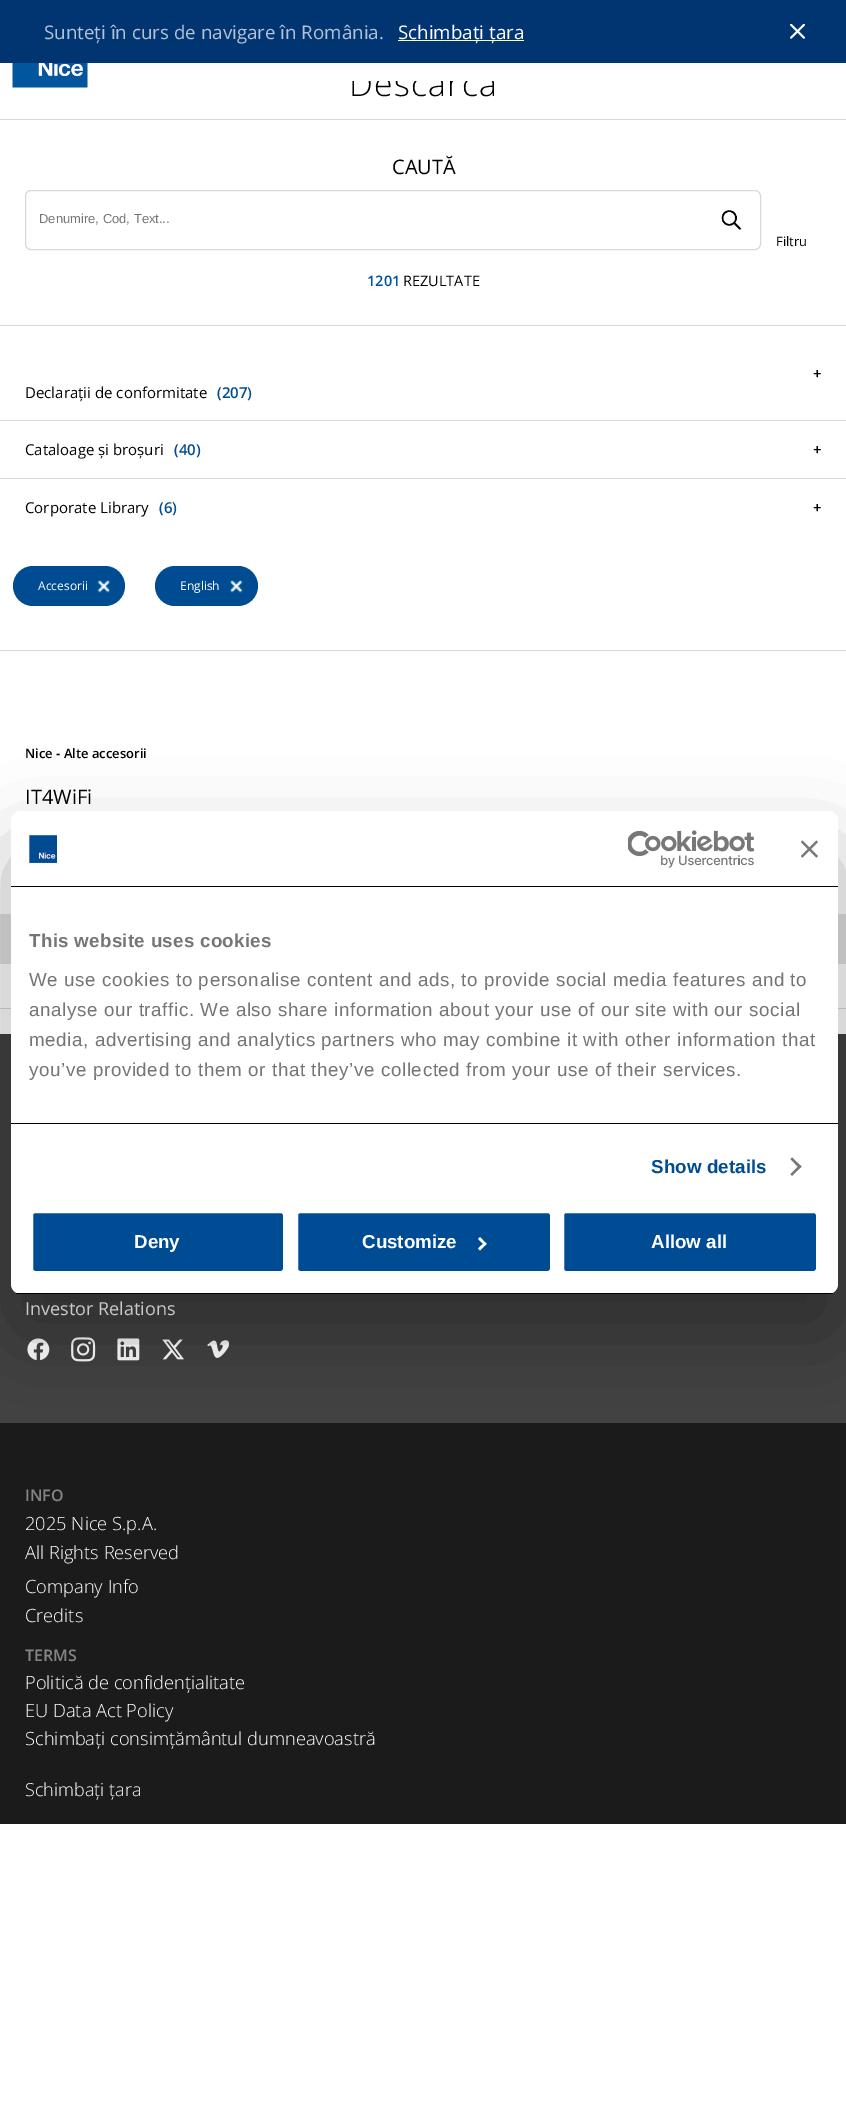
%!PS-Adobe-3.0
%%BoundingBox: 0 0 846 2105
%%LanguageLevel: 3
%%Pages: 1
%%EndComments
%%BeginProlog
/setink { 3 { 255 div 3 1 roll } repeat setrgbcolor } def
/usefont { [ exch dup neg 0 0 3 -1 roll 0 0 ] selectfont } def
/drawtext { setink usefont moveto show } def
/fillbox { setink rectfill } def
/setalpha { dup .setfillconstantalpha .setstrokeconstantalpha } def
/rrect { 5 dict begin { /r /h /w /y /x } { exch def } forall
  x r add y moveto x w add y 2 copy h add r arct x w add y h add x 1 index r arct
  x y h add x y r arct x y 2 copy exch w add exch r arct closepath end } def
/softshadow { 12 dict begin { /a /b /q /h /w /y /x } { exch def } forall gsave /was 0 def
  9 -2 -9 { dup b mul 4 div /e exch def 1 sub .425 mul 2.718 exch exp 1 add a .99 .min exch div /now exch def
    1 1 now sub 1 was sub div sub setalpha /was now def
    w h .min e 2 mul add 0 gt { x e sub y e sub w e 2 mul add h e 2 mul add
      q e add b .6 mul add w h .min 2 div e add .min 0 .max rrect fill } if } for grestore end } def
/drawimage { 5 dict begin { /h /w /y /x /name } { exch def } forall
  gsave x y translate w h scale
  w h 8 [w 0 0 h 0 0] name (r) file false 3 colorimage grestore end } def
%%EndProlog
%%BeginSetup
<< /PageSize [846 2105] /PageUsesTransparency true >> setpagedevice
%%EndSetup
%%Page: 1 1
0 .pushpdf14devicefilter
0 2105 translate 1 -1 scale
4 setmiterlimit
0 0 846 2105 255 255 255 fillbox
0 0 846 63 1 53 114 fillbox
(Sunteți în curs de navigare în România.) 44 39 /OpenSans-Regular 18.75 179 194 213 drawtext
398 40 126 1 255 255 255 fillbox
(Schimbați țara) 398 39 /OpenSans-Regular 18.75 255 255 255 drawtext
(assets/img1.rgb) 790 24 15 15 drawimage
0 1034 846 389 67 67 67 fillbox
(Investor Relations) 25 1315 /OpenSans-Regular 18 255 255 255 drawtext
(assets/img2.rgb) 27 1338 23 23 drawimage
(assets/img3.rgb) 71 1337 25 25 drawimage
(assets/img4.rgb) 117 1338 23 23 drawimage
(assets/img5.rgb) 162 1339 22 21 drawimage
(assets/img6.rgb) 207 1340 23 18 drawimage
0 1423 846 401 27 27 27 fillbox
(INFO) 25 1501 /OpenSans-SemiBold 16 133 133 133 drawtext
(2025 Nice S.p.A.) 25 1530 /OpenSans-Light 18.25 255 255 255 drawtext
(All Rights Reserved) 25 1559 /OpenSans-Light 18.25 255 255 255 drawtext
(Company Info) 25 1593 /OpenSans-Light 18.25 255 255 255 drawtext
(Credits) 25 1622 /OpenSans-Light 18.25 255 255 255 drawtext
(TERMS) 25 1661 /OpenSans-SemiBold 16 133 133 133 drawtext
(Politică de confidențialitate) 25 1689 /OpenSans-Light 18.25 255 255 255 drawtext
(EU Data Act Policy) 25 1717 /OpenSans-Light 18.25 255 255 255 drawtext
(Schimbați consimțământul dumneavoastră) 25 1745 /OpenSans-Light 18.25 255 255 255 drawtext
(Schimbați țara) 25 1796 /OpenSans-Light 18 255 255 255 drawtext
(assets/img7.rgb) 12 63 76 25 drawimage
/OpenSans-Light 33.75 usefont
0 0 0 setink
349 96 moveto 1.25 0 (Descarca) ashow
351 71 143 10 255 255 255 fillbox
0 119 846 1 217 217 217 fillbox
(CAUTĂ) 392 174 /OpenSans-Regular 20 0 0 0 drawtext
217 217 217 setink
25.5 190.5 735 59 5.5 rrect stroke
(Denumire, Cod, Text...) 39 223 /LiberationSans-Regular 13 117 117 117 drawtext
(assets/img8.rgb) 721 210 21 20 drawimage
(Filtru) 776 246 /OpenSans-Regular 13 0 0 0 drawtext
(1201) 367 286 /OpenSans-SemiBold 14.5 0 83 159 drawtext
(REZULTATE) 403 286 /OpenSans-Regular 14.5 0 0 0 drawtext
0 325 846 1 217 217 217 fillbox
(+) 813 379 /OpenSans-SemiBold 15 0 0 0 drawtext
(Declarații de conformitate) 25 398 /OpenSans-Regular 15 0 0 0 drawtext
(\(207\)) 217 398 /OpenSans-SemiBold 15 0 76 146 drawtext
0 420 846 1 217 217 217 fillbox
(Cataloage și broșuri) 25 455 /OpenSans-Regular 15 0 0 0 drawtext
(\(40\)) 174 455 /OpenSans-SemiBold 15 0 76 146 drawtext
(+) 813 455 /OpenSans-SemiBold 15 0 0 0 drawtext
0 478 846 1 217 217 217 fillbox
(Corporate Library) 25 513 /OpenSans-Regular 15 0 0 0 drawtext
(\(6\)) 159 513 /OpenSans-SemiBold 15 0 76 146 drawtext
(+) 813 513 /OpenSans-SemiBold 15 0 0 0 drawtext
0 650 846 1 217 217 217 fillbox
0 76 146 setink
13 566 112 40 20 rrect fill
(Accesorii) 38 590 /OpenSans-Regular 12 255 255 255 drawtext
(assets/img9.rgb) 97 580 14 13 drawimage
0 76 146 setink
155 566 103 40 20 rrect fill
(English) 180 590 /OpenSans-Regular 12 255 255 255 drawtext
(assets/img10.rgb) 230 580 13 13 drawimage
0 1008 846 1 217 217 217 fillbox
(Nice - Alte accesorii) 25 758 /OpenSans-SemiBold 13 0 0 0 drawtext
(IT4WiFi) 25 804 /OpenSans-Regular 20 0 0 0 drawtext
0 914 846 50 226 226 226 fillbox
0 0 0 setink
11 851 827 483 10 42.5 0.3 softshadow
255 255 255 setink
11 811 827 483 10 rrect fill
11 886 827 1 0 0 0 fillbox
(assets/img11.rgb) 29 835 28 29 drawimage
(assets/img12.rgb) 628 830 127 38 drawimage
(assets/img13.rgb) 801 840 17 18 drawimage
11 1123 827 1 0 0 0 fillbox
/LiberationSans-Bold 18.75 usefont
117 117 117 setink
29 947 moveto 0.3 0 (This website uses cookies) ashow
/LiberationSans-Regular 18.75 usefont
29 986 moveto 0.62 0 (We use cookies to personalise content and ads, to provide social media features and to) ashow
29 1016 moveto 0.62 0 (analyse our traffic. We also share information about your use of our site with our social) ashow
29 1046 moveto 0.62 0 (media, advertising and analytics partners who may combine it with other information that) ashow
29 1076 moveto 0.62 0 (you’ve provided to them or that they’ve collected from your use of their services.) ashow
/LiberationSans-Bold 18.75 usefont
0 76 146 setink
651 1173 moveto 0.1 0 (Show details) ashow
119 119 119 setink
792 1157.5 moveto 801.5 1166.5 lineto 799.5 1168.5 lineto 790.5 1159 lineto closepath fill
799.5 1165 moveto 801.5 1166.5 lineto 792 1176 lineto 790.5 1174 lineto closepath fill
gsave
11 811 827 483 10 rrect clip newpath
11 1293 827 1 0 0 0 fillbox
grestore
0 76 148 setink
31.5 1211.5 253 61 3.5 rrect gsave fill grestore
255 255 255 setink
3 setlinewidth
stroke
(Deny) 134 1248 /LiberationSans-Bold 18.75 255 255 255 drawtext
0 76 148 setink
296.5 1211.5 255 61 3.5 rrect gsave fill grestore
255 255 255 setink
stroke
(Customize) 362 1248 /LiberationSans-Bold 18.75 255 255 255 drawtext
480 1237 moveto 486.5 1244 lineto 485 1245.5 lineto 478 1239 lineto closepath fill
485 1242 moveto 486.5 1244 lineto 480 1250.5 lineto 478 1248.5 lineto closepath fill
0 76 148 setink
562.5 1211.5 255 61 3.5 rrect gsave fill grestore
255 255 255 setink
stroke
(Allow all) 651 1248 /LiberationSans-Bold 18.75 255 255 255 drawtext
.poppdf14devicefilter showpage
%%EOF
